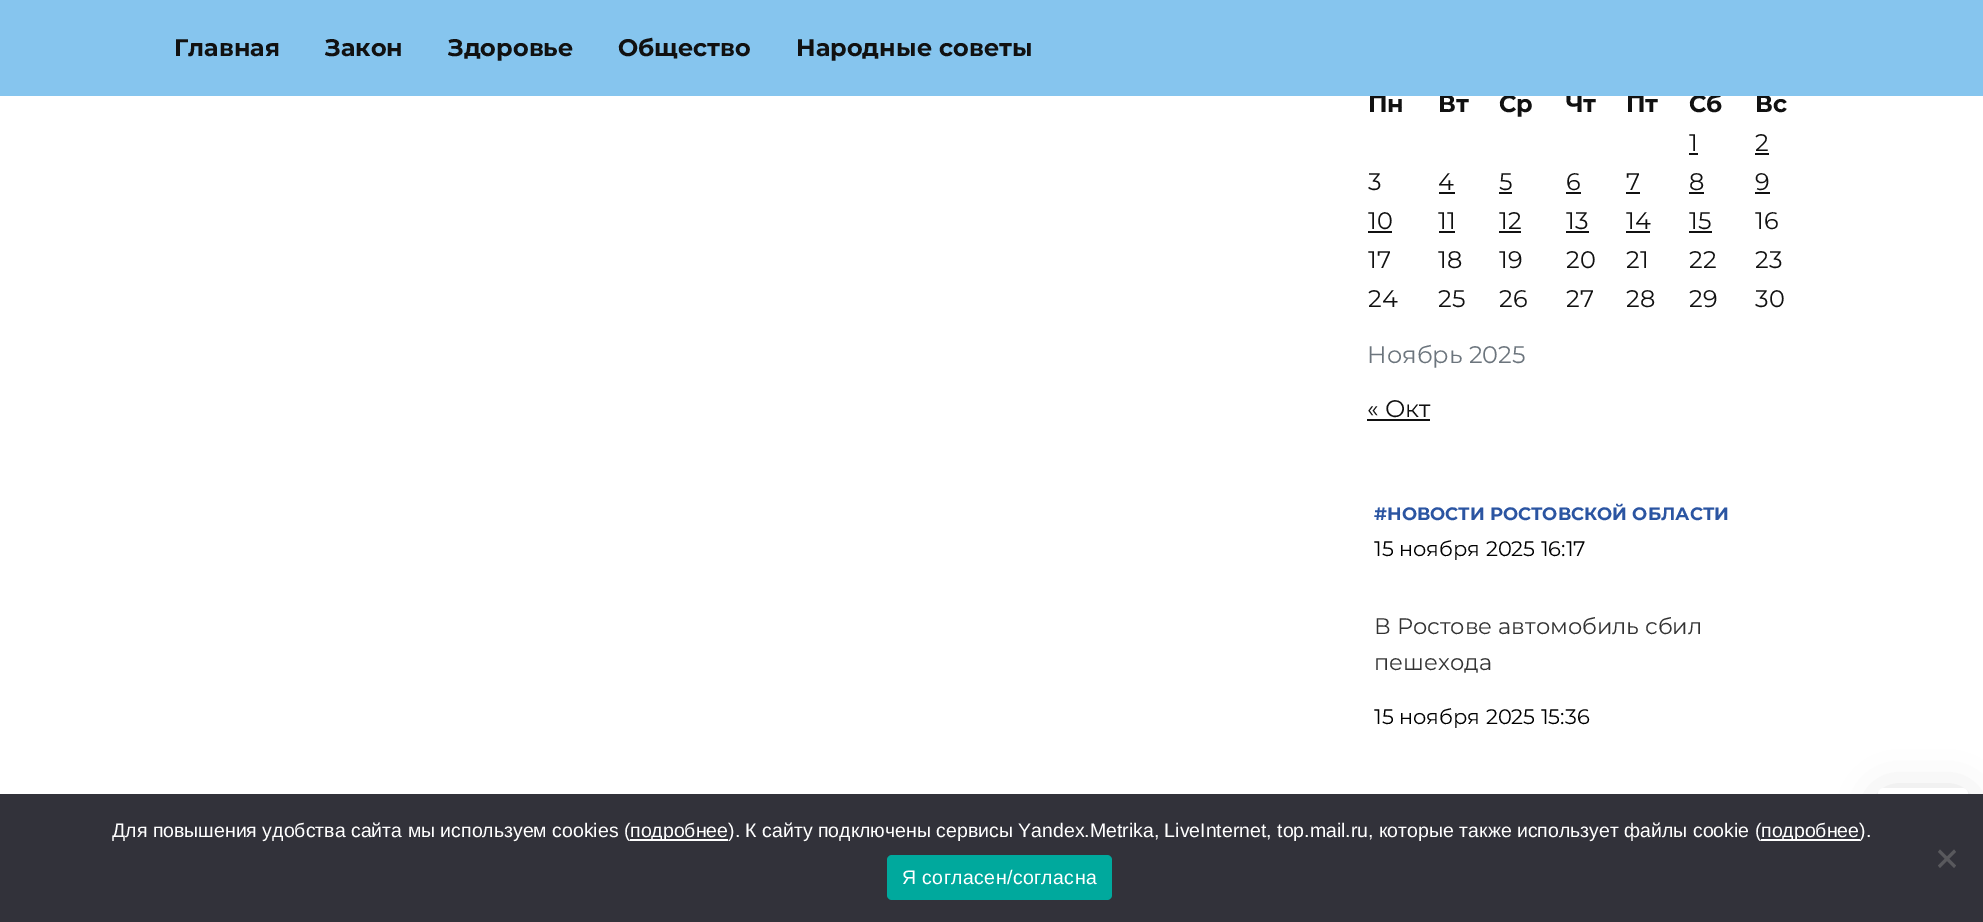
%!PS-Adobe-3.0
%%BoundingBox: 0 0 1983 922
%%LanguageLevel: 3
%%Pages: 1
%%EndComments
%%BeginProlog
/setink { 3 { 255 div 3 1 roll } repeat setrgbcolor } def
/usefont { [ exch dup neg 0 0 3 -1 roll 0 0 ] selectfont } def
/drawtext { setink usefont moveto show } def
/fillbox { setink rectfill } def
/setalpha { dup .setfillconstantalpha .setstrokeconstantalpha } def
/rrect { 5 dict begin { /r /h /w /y /x } { exch def } forall
  x r add y moveto x w add y 2 copy h add r arct x w add y h add x 1 index r arct
  x y h add x y r arct x y 2 copy exch w add exch r arct closepath end } def
/softshadow { 12 dict begin { /a /b /q /h /w /y /x } { exch def } forall gsave /was 0 def
  9 -2 -9 { dup b mul 4 div /e exch def 1 sub .425 mul 2.718 exch exp 1 add a .99 .min exch div /now exch def
    1 1 now sub 1 was sub div sub setalpha /was now def
    w h .min e 2 mul add 0 gt { x e sub y e sub w e 2 mul add h e 2 mul add
      q e add b .6 mul add w h .min 2 div e add .min 0 .max rrect fill } if } for grestore end } def
%%EndProlog
%%BeginSetup
<< /PageSize [1983 922] /PageUsesTransparency true >> setpagedevice
%%EndSetup
%%Page: 1 1
0 .pushpdf14devicefilter
0 922 translate 1 -1 scale
4 setmiterlimit
0 0 1983 922 255 255 255 fillbox
(Пн) 1368 112 /Montserrat-Bold 24 17 17 17 drawtext
(Вт) 1438 112 /Montserrat-Bold 24 17 17 17 drawtext
(Ср) 1499 112 /Montserrat-Bold 24 17 17 17 drawtext
(Чт) 1566 112 /Montserrat-Bold 24 17 17 17 drawtext
(Пт) 1626 112 /Montserrat-Bold 24 17 17 17 drawtext
(Сб) 1689 112 /Montserrat-Bold 24 17 17 17 drawtext
(Вс) 1755 112 /Montserrat-Bold 24 17 17 17 drawtext
0 0 1983 96 134 197 238 fillbox
(Главная) 174 56 /Montserrat-Bold 24 17 17 17 drawtext
(Закон) 325 56 /Montserrat-Bold 24 17 17 17 drawtext
(Здоровье) 448 56 /Montserrat-Bold 24 17 17 17 drawtext
(Общество) 618 56 /Montserrat-Bold 24 17 17 17 drawtext
(Народные советы) 796 56 /Montserrat-Bold 24 17 17 17 drawtext
(1) 1689 151 /Montserrat-Regular 24 17 17 17 drawtext
1689 153 9 2 17 17 17 fillbox
(2) 1755 151 /Montserrat-Regular 24 17 17 17 drawtext
1755 153 14 2 17 17 17 fillbox
(3) 1368 190 /Montserrat-Regular 24 17 17 17 drawtext
(4) 1438 190 /Montserrat-Regular 24 17 17 17 drawtext
1439 192 16 2 17 17 17 fillbox
(5) 1499 190 /Montserrat-Regular 24 17 17 17 drawtext
1499 192 13 2 17 17 17 fillbox
(6) 1566 190 /Montserrat-Regular 24 17 17 17 drawtext
1566 192 15 2 17 17 17 fillbox
(7) 1626 190 /Montserrat-Regular 24 17 17 17 drawtext
1626 192 14 2 17 17 17 fillbox
(8) 1689 190 /Montserrat-Regular 24 17 17 17 drawtext
1689 192 15 2 17 17 17 fillbox
(9) 1755 190 /Montserrat-Regular 24 17 17 17 drawtext
1755 192 15 2 17 17 17 fillbox
(10) 1368 229 /Montserrat-Regular 24 17 17 17 drawtext
1368 231 24 2 17 17 17 fillbox
(11) 1438 229 /Montserrat-Regular 24 17 17 17 drawtext
1439 231 16 2 17 17 17 fillbox
(12) 1499 229 /Montserrat-Regular 24 17 17 17 drawtext
1499 231 22 2 17 17 17 fillbox
(13) 1566 229 /Montserrat-Regular 24 17 17 17 drawtext
1566 231 23 2 17 17 17 fillbox
(14) 1626 229 /Montserrat-Regular 24 17 17 17 drawtext
1626 231 24 2 17 17 17 fillbox
(15) 1689 229 /Montserrat-Regular 24 17 17 17 drawtext
1689 231 23 2 17 17 17 fillbox
(16) 1755 229 /Montserrat-Regular 24 17 17 17 drawtext
(17) 1368 268 /Montserrat-Regular 24 17 17 17 drawtext
(18) 1438 268 /Montserrat-Regular 24 17 17 17 drawtext
(19) 1499 268 /Montserrat-Regular 24 17 17 17 drawtext
(20) 1566 268 /Montserrat-Regular 24 17 17 17 drawtext
(21) 1626 268 /Montserrat-Regular 24 17 17 17 drawtext
(22) 1689 268 /Montserrat-Regular 24 17 17 17 drawtext
(23) 1755 268 /Montserrat-Regular 24 17 17 17 drawtext
(24) 1368 307 /Montserrat-Regular 24 17 17 17 drawtext
(25) 1438 307 /Montserrat-Regular 24 17 17 17 drawtext
(26) 1499 307 /Montserrat-Regular 24 17 17 17 drawtext
(27) 1566 307 /Montserrat-Regular 24 17 17 17 drawtext
(28) 1626 307 /Montserrat-Regular 24 17 17 17 drawtext
(29) 1689 307 /Montserrat-Regular 24 17 17 17 drawtext
(30) 1755 307 /Montserrat-Regular 24 17 17 17 drawtext
(Ноябрь 2025) 1367 363 /Montserrat-Regular 24 108 117 125 drawtext
(« Окт) 1367 417 /Montserrat-Regular 24 17 17 17 drawtext
1367 419 63 2 17 17 17 fillbox
(#НОВОСТИ РОСТОВСКОЙ ОБЛАСТИ) 1374 520 /Montserrat-Bold 18 43 85 162 drawtext
(15 ноября 2025 16:17) 1374 556 /Montserrat-Regular 21 0 0 0 drawtext
(В Ростове автомобиль сбил) 1374 634 /Montserrat-Regular 22.5 51 51 51 drawtext
(пешехода) 1374 670 /Montserrat-Regular 22.5 51 51 51 drawtext
(15 ноября 2025 15:36) 1374 724 /Montserrat-Regular 21 0 0 0 drawtext
102 102 102 setink
1886 800 75 60 0 22.5 0.3 softshadow
255 255 255 setink
1878 788 90 75 6 rrect fill
0 794 1983 128 50 50 58 fillbox
(Для повышения удобства сайта мы используем cookies \() 112 837 /LiberationSans-Regular 19.5 255 255 255 drawtext
630 839 98 2 255 255 255 fillbox
(подробнее\). К сайту подключены сервисы Yandex.Metrika, LiveInternet, top.mail.ru, которые также использует файлы cookie \() 630 837 /LiberationSans-Regular 19.5 255 255 255 drawtext
1761 839 99 2 255 255 255 fillbox
(подробнее\).) 1761 837 /LiberationSans-Regular 19.5 255 255 255 drawtext
89 89 93 setink
1954 849.5 moveto 1956 852 lineto 1940 868 lineto 1938 865.5 lineto closepath fill
1938 852 moveto 1940 849.5 lineto 1956 865.5 lineto 1954 868 lineto closepath fill
0 169 157 setink
887 855 225 45 5 rrect fill
255 255 255 setink
902 884 moveto 0.4 0 (Я согласен/согласна) ashow
.poppdf14devicefilter showpage
%%EOF
